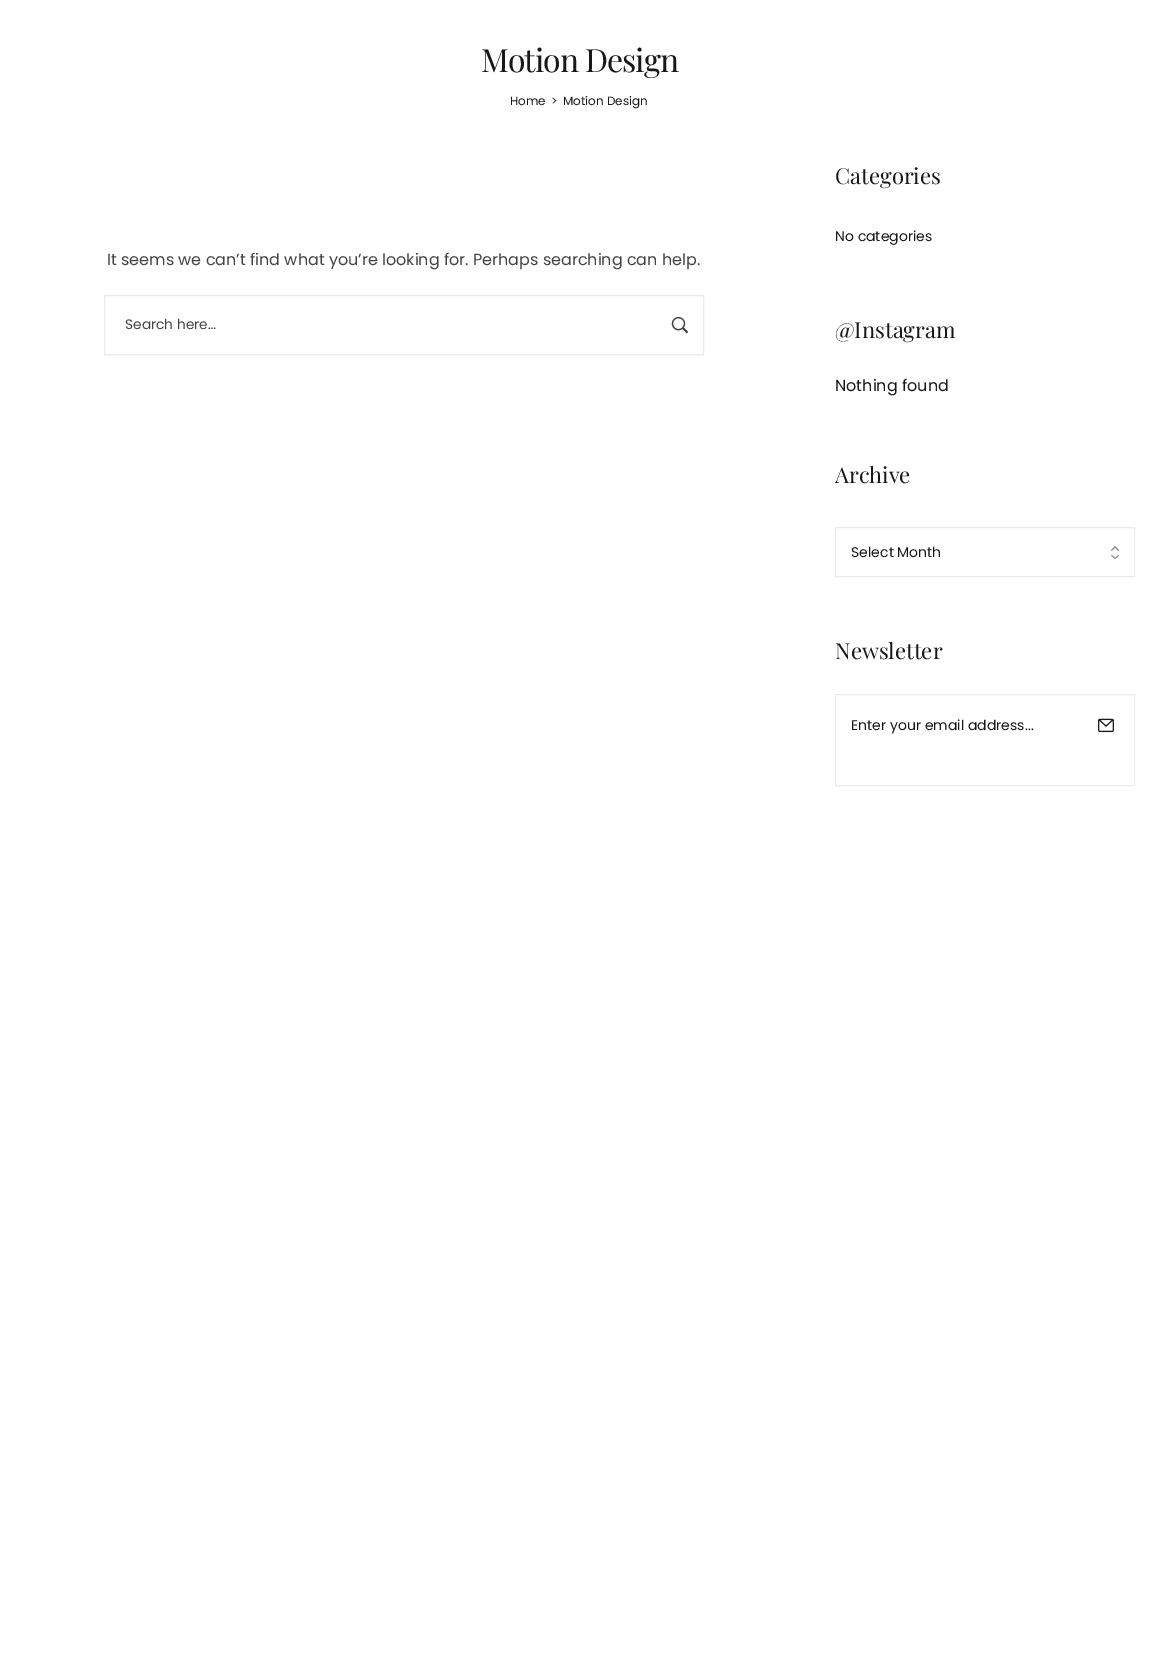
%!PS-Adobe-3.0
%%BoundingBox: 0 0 1158 1679
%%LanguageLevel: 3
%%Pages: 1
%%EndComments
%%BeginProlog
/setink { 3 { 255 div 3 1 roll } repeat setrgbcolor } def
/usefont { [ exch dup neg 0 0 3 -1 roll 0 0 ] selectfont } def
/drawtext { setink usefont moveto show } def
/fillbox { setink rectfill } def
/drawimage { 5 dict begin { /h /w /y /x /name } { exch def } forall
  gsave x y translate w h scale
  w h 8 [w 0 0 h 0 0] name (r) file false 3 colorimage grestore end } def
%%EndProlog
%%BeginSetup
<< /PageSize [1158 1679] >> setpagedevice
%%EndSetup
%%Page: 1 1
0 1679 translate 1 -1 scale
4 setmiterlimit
0 0 1158 1679 255 255 255 fillbox
/PlayfairDisplay-Regular 32 usefont
24 24 24 setink
481 72 moveto -1 0 (Motion Design) ashow
(Home) 510 105 /Poppins-Regular 12 24 24 24 drawtext
(>) 551 105 /Poppins-Regular 12 24 24 24 drawtext
(Motion Design) 563 105 /Poppins-Regular 12 24 24 24 drawtext
(It seems we can’t find what you’re looking for. Perhaps searching can help.) 107 265 /Poppins-Regular 16 68 68 68 drawtext
235 235 235 setink
104.5 295.5 599 59 rectstroke
(Search here…) 125 329 /Poppins-Regular 13.75 68 68 68 drawtext
(assets/img1.rgb) 671 316 18 18 drawimage
(Categories) 835 184 /PlayfairDisplay-Regular 22 24 24 24 drawtext
(No categories) 835 241 /Poppins-Regular 14 24 24 24 drawtext
(@Instagram) 835 338 /PlayfairDisplay-Regular 22 24 24 24 drawtext
(Nothing found) 835 391 /Poppins-Regular 16 24 24 24 drawtext
(Archive) 835 483 /PlayfairDisplay-Regular 22 24 24 24 drawtext
(assets/img2.rgb) 1111 546 8 13 drawimage
235 235 235 setink
835.5 527.5 299 49 rectstroke
(Select Month) 851 557 /Poppins-Regular 14 24 24 24 drawtext
(Newsletter) 835 659 /PlayfairDisplay-Regular 22 24 24 24 drawtext
235 235 235 setink
835.5 694.5 299 91 rectstroke
(Enter your email address...) 851 730 /Poppins-Regular 14 24 24 24 drawtext
(assets/img3.rgb) 1098 718 16 15 drawimage
showpage
%%EOF
